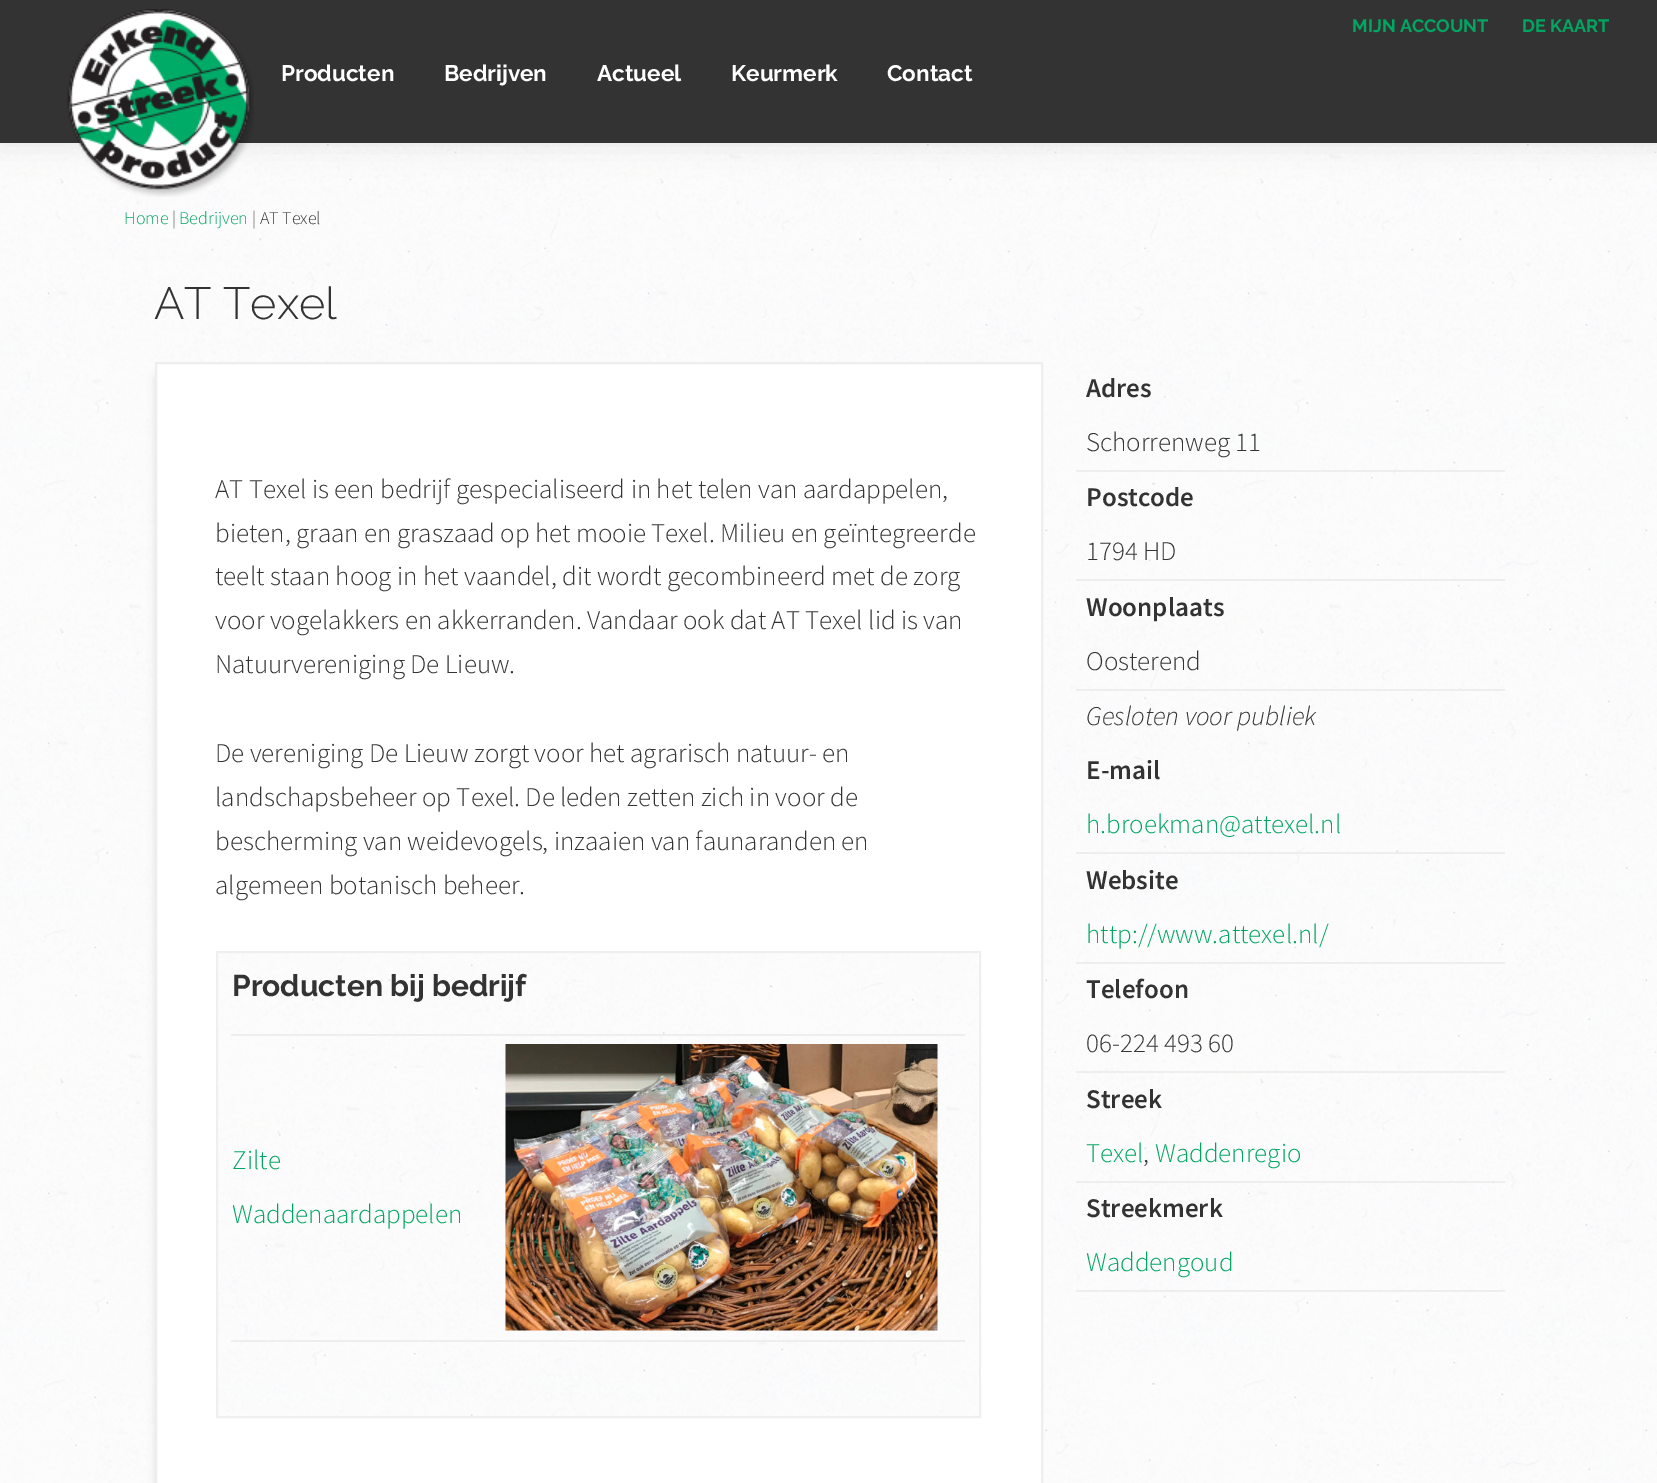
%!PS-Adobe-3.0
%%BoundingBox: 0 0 1657 1483
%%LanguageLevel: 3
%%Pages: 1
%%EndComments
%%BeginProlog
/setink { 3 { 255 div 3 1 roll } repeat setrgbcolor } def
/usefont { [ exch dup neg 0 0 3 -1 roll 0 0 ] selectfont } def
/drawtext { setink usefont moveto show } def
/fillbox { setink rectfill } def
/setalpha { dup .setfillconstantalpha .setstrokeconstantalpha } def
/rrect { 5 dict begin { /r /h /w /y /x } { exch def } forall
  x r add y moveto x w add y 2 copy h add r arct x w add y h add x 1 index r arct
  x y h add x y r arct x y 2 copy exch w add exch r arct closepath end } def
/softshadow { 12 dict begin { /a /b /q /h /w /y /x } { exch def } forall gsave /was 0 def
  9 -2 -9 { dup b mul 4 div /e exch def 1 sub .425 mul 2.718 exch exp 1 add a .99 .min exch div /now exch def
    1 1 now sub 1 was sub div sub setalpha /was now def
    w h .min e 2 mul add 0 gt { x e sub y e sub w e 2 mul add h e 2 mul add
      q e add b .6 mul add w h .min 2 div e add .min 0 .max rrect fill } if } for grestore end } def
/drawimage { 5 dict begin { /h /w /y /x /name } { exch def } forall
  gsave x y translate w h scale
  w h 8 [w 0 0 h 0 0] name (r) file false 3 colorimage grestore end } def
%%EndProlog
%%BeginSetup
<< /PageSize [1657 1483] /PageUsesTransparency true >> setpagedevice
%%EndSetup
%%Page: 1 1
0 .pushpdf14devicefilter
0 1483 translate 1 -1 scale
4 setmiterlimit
0 0 1657 1483 255 255 255 fillbox
(assets/img1.rgb) 0 143 1657 1340 drawimage
0 0 0 setink
0 0 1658 143 0 15 0.1 softshadow
0 0 1657 143 51 51 51 fillbox
(MIJN ACCOUNT) 1352 32 /Raleway-Bold 18 0 166 97 drawtext
(DE KAART) 1522 32 /Raleway-Bold 18 0 166 97 drawtext
(assets/img2.rgb) 67 9 187 188 drawimage
(Producten) 281 81 /Raleway-Bold 22.5 255 255 255 drawtext
(Bedrijven) 444 81 /Raleway-Bold 22.5 255 255 255 drawtext
(Actueel) 597 81 /Raleway-Bold 22.5 255 255 255 drawtext
(Keurmerk) 731 81 /Raleway-Bold 22.5 255 255 255 drawtext
(Contact) 887 81 /Raleway-Bold 22.5 255 255 255 drawtext
(Home) 124 224 /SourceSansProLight-Light 18 0 166 97 drawtext
(|) 172 224 /SourceSansProLight-Light 18 51 51 51 drawtext
(Bedrijven) 179 224 /SourceSansProLight-Light 18 0 166 97 drawtext
(| AT Texel) 252 224 /SourceSansProLight-Light 18 51 51 51 drawtext
(AT Texel) 154 319 /Raleway-Light 45 51 51 51 drawtext
207 203 207 setink
155 377 873 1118 0 4 0.57 softshadow
255 255 255 setink
156 363 moveto 1042 363 lineto 1042 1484 lineto 156 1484 lineto closepath gsave fill grestore
238 238 238 setink
2 setlinewidth
stroke
(AT Texel is een bedrijf gespecialiseerd in het telen van aardappelen,) 215 498 /SourceSansProLight-Light 27 51 51 51 drawtext
(bieten, graan en graszaad op het mooie Texel. Milieu en geïntegreerde) 215 542 /SourceSansProLight-Light 27 51 51 51 drawtext
(teelt staan hoog in het vaandel, dit wordt gecombineerd met de zorg) 215 585 /SourceSansProLight-Light 27 51 51 51 drawtext
(voor vogelakkers en akkerranden. Vandaar ook dat AT Texel lid is van) 215 629 /SourceSansProLight-Light 27 51 51 51 drawtext
(Natuurvereniging De Lieuw.) 215 673 /SourceSansProLight-Light 27 51 51 51 drawtext
(De vereniging De Lieuw zorgt voor het agrarisch natuur- en) 215 762 /SourceSansProLight-Light 27 51 51 51 drawtext
(landschapsbeheer op Texel. De leden zetten zich in voor de) 215 806 /SourceSansProLight-Light 27 51 51 51 drawtext
(bescherming van weidevogels, inzaaien van faunaranden en) 215 850 /SourceSansProLight-Light 27 51 51 51 drawtext
(algemeen botanisch beheer.) 215 894 /SourceSansProLight-Light 27 51 51 51 drawtext
(assets/img3.rgb) 218 953 761 463 drawimage
239 239 239 setink
217 952 763 465 rectstroke
(Producten bij bedrijf) 232 996 /Raleway-Bold 30 51 51 51 drawtext
231 1340 734 2 238 238 238 fillbox
231 1034 734 2 238 238 238 fillbox
(Zilte) 232 1169 /SourceSansProLight-Light 27 0 166 97 drawtext
(Waddenaardappelen) 232 1223 /SourceSansProLight-Light 27 0 166 97 drawtext
(assets/img4.rgb) 505 1044 433 287 drawimage
1076 1290 429 2 238 238 238 fillbox
(Adres) 1086 397 /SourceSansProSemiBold-SemiBold 27 51 51 51 drawtext
1076 470 429 2 238 238 238 fillbox
(Schorrenweg 11) 1086 451 /SourceSansProLight-Light 27 51 51 51 drawtext
(Postcode) 1086 506 /SourceSansProSemiBold-SemiBold 27 51 51 51 drawtext
1076 579 429 2 238 238 238 fillbox
(1794 HD) 1086 560 /SourceSansProLight-Light 27 51 51 51 drawtext
(Woonplaats) 1086 616 /SourceSansProSemiBold-SemiBold 27 51 51 51 drawtext
1076 689 429 2 238 238 238 fillbox
(Oosterend) 1086 670 /SourceSansProLight-Light 27 51 51 51 drawtext
(Gesloten voor publiek) 1086 725 /SourceSansProLight-LightItalic 27 51 51 51 drawtext
(E-mail) 1086 779 /SourceSansProSemiBold-SemiBold 27 51 51 51 drawtext
1076 852 429 2 238 238 238 fillbox
(h.broekman@attexel.nl) 1086 833 /SourceSansProLight-Light 27 0 166 97 drawtext
(Website) 1086 889 /SourceSansProSemiBold-SemiBold 27 51 51 51 drawtext
1076 962 429 2 238 238 238 fillbox
(http://www.attexel.nl/) 1086 943 /SourceSansProLight-Light 27 0 166 97 drawtext
(Telefoon) 1086 998 /SourceSansProSemiBold-SemiBold 27 51 51 51 drawtext
1076 1071 429 2 238 238 238 fillbox
(06-224 493 60) 1086 1052 /SourceSansProLight-Light 27 51 51 51 drawtext
(Streek) 1086 1108 /SourceSansProSemiBold-SemiBold 27 51 51 51 drawtext
1076 1181 429 2 238 238 238 fillbox
(Texel) 1086 1162 /SourceSansProLight-Light 27 0 166 97 drawtext
(,) 1143 1162 /SourceSansProLight-Light 27 51 51 51 drawtext
(Waddenregio) 1155 1162 /SourceSansProLight-Light 27 0 166 97 drawtext
(Streekmerk) 1086 1217 /SourceSansProSemiBold-SemiBold 27 51 51 51 drawtext
(Waddengoud) 1086 1271 /SourceSansProLight-Light 27 0 166 97 drawtext
.poppdf14devicefilter showpage
%%EOF
